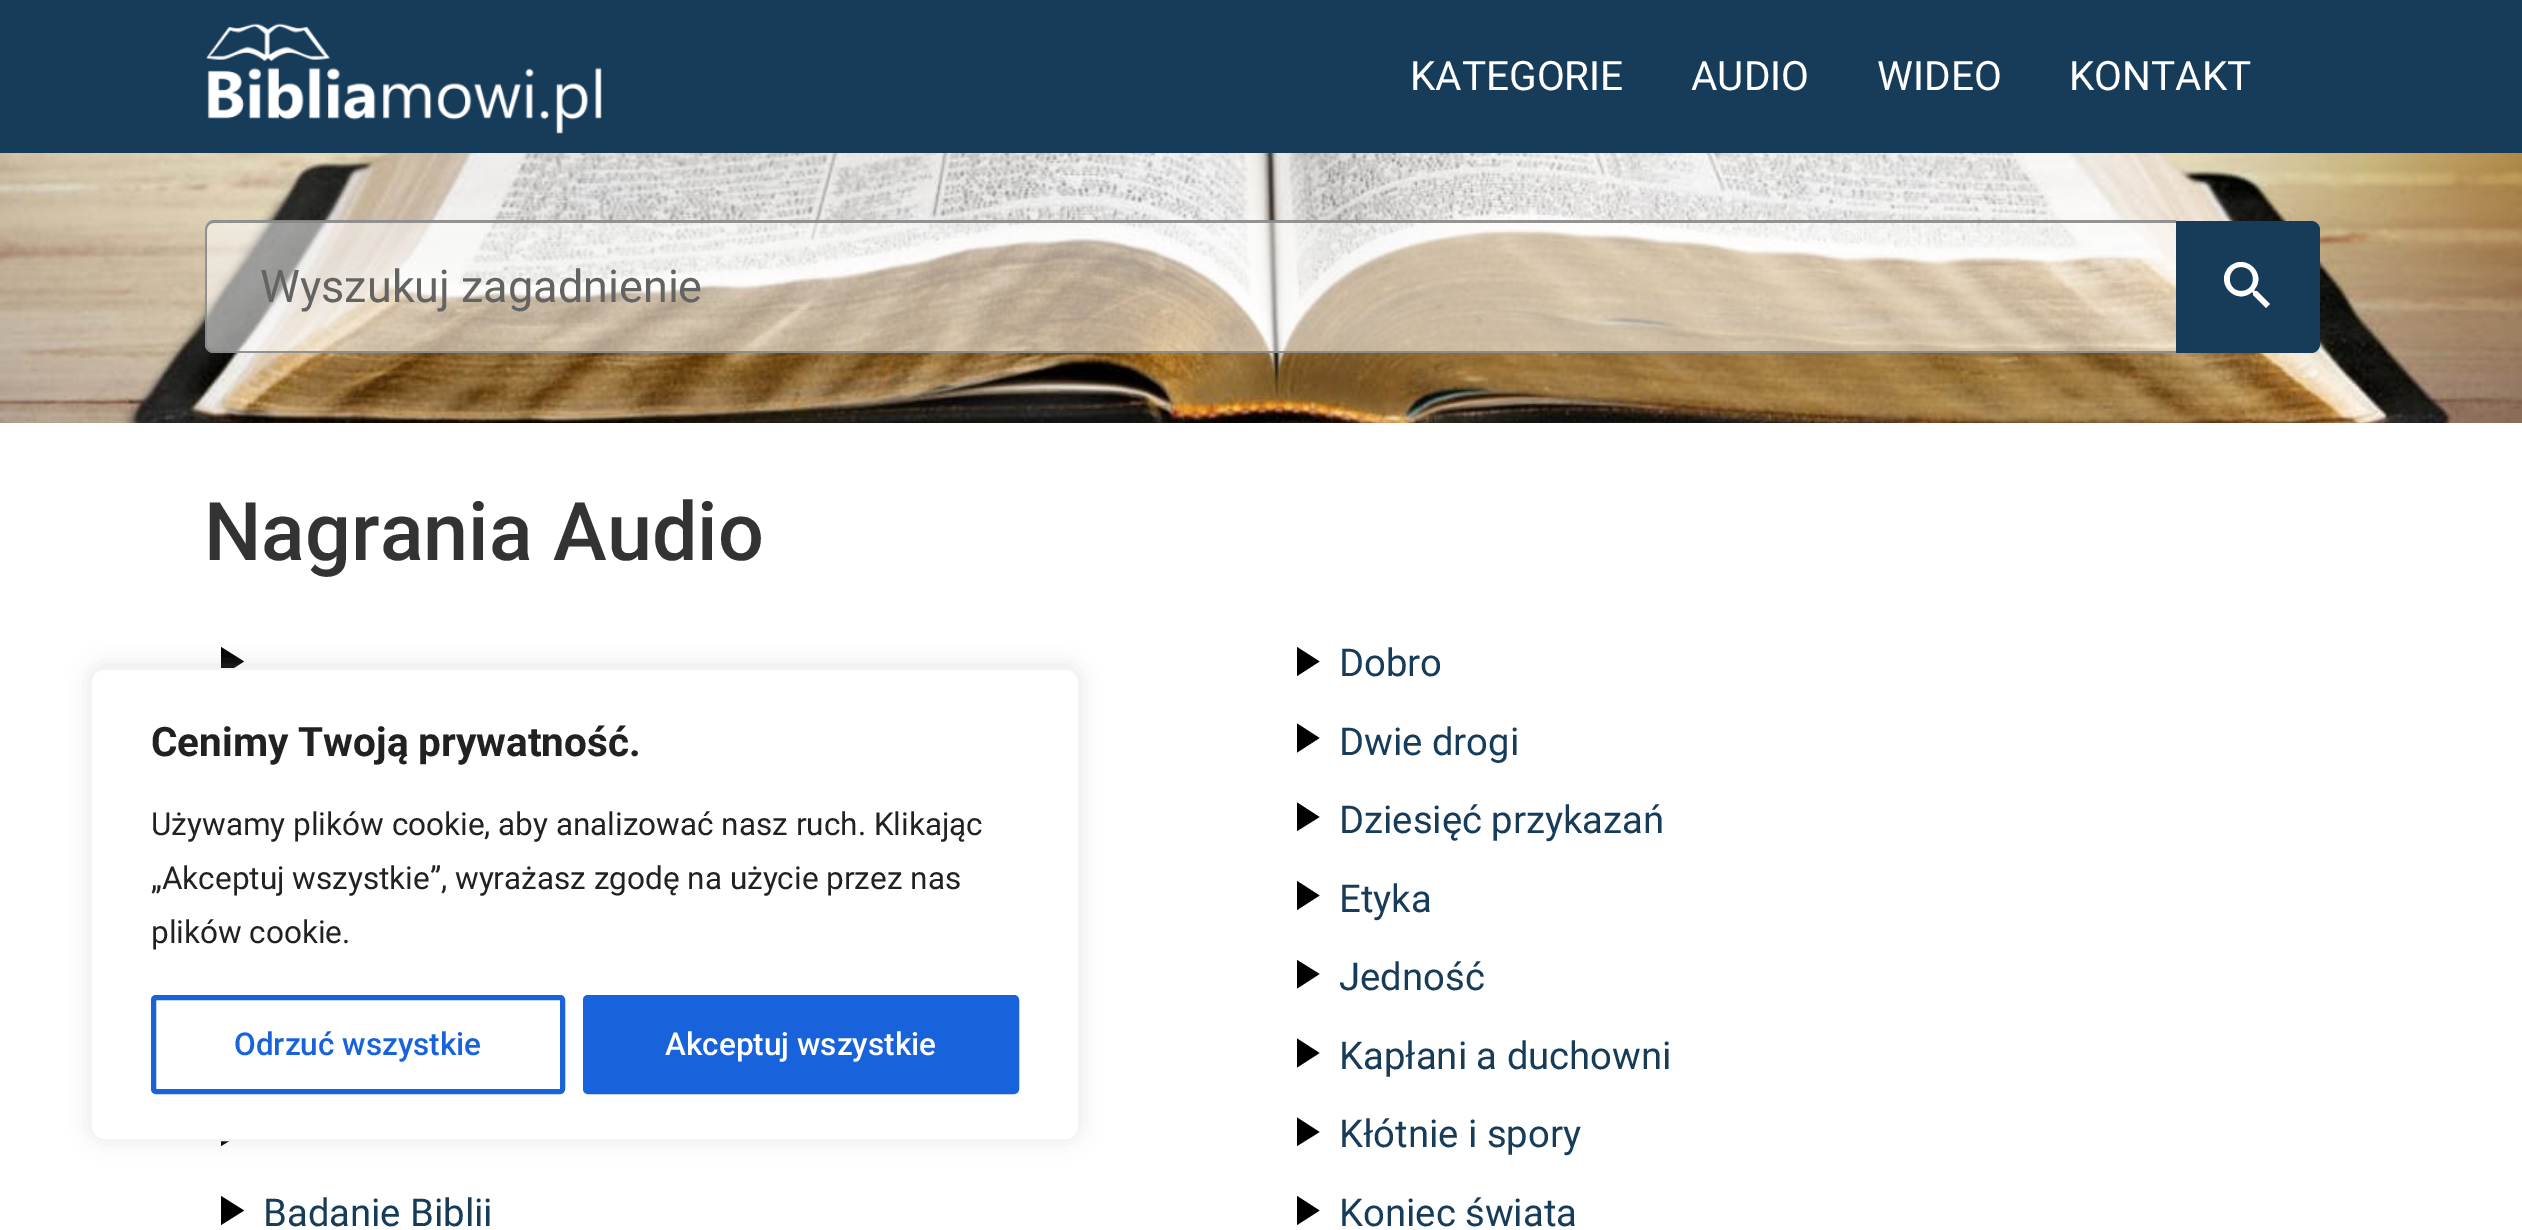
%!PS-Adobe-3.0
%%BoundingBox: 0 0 2522 1230
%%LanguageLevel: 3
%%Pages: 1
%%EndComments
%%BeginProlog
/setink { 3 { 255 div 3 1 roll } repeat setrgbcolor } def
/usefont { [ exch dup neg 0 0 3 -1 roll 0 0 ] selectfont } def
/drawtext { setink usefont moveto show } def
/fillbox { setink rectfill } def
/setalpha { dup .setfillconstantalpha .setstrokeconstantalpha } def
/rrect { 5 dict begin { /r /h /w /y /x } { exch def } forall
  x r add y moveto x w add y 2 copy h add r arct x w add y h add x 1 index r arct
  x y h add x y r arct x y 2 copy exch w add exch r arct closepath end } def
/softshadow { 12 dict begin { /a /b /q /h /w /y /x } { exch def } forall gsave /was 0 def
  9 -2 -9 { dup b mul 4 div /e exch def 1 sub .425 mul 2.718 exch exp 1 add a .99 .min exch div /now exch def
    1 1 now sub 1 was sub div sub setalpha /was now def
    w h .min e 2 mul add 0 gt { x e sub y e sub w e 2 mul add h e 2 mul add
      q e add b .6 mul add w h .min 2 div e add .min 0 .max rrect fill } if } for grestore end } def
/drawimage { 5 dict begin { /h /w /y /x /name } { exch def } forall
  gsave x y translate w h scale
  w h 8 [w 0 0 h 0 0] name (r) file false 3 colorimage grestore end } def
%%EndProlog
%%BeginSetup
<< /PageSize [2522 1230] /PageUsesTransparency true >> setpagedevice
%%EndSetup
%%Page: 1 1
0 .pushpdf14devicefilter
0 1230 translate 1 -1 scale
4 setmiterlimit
0 0 2522 1230 255 255 255 fillbox
0 0 2522 153 23 60 90 fillbox
(assets/img1.rgb) 206 23 396 111 drawimage
(KATEGORIE) 1410 90 /Roboto-Regular 40.5 255 255 255 drawtext
(AUDIO) 1691 90 /Roboto-Regular 40.5 255 255 255 drawtext
(WIDEO) 1877 90 /Roboto-Regular 40.5 255 255 255 drawtext
(KONTAKT) 2069 90 /Roboto-Regular 40.5 255 255 255 drawtext
(assets/img2.rgb) 0 153 2522 270 drawimage
0.54 setalpha
214 221 moveto 2176 221 lineto 2176 353 lineto 214 353 lineto 209 353 205 349 205 344 curveto 205 230 lineto 205 225 209 221 214 221 curveto closepath fill
0.9 setalpha
136 136 136 setink
214 220 moveto 2176 220 lineto 2176 353 lineto 214 353 lineto 209 353 205 349 205 344 curveto 205 230 lineto 205 225 209 220 214 220 curveto closepath 214 223 moveto 2176 223 lineto 2176 351 lineto 214 351 lineto 210 351 207 348 207 344 curveto 207 230 lineto 207 226 210 223 214 223 curveto closepath eofill
1 setalpha
(Wyszukuj zagadnienie) 260 302 /Roboto-Regular 45 99 99 98 drawtext
23 60 90 setink
2176 221 moveto 2311 221 lineto 2316 221 2320 225 2320 230 curveto 2320 344 lineto 2320 349 2316 353 2311 353 curveto 2176 353 lineto closepath fill
255 255 255 setink
2257 291 moveto 2255 291 lineto 2254 290 lineto 2268 274 2245 252 2229 267 curveto 2214 283 2236 306 2252 292 curveto 2253 293 lineto 2253 295 lineto 2266 308 lineto 2270 304 lineto closepath 2241 291 moveto 2226 291 2226 267 2241 267 curveto 2257 267 2257 291 2241 291 curveto closepath fill
(Nagrania Audio) 204 560 /Roboto-Medium 81 51 51 51 drawtext
0 0 0 setink
221 647 moveto 221 676 lineto 244 661.5 lineto closepath fill
1297 647 moveto 1297 676 lineto 1319.5 661.5 lineto closepath fill
(Dobro) 1339 676 /Roboto-Regular 38.25 23 60 90 drawtext
0 0 0 setink
1297 723.5 moveto 1297 752.5 lineto 1319.5 738 lineto closepath fill
(Dwie drogi) 1339 755 /Roboto-Regular 38.25 23 60 90 drawtext
0 0 0 setink
1297 802.5 moveto 1297 831 lineto 1319.5 817 lineto closepath fill
(Dziesięć przykazań) 1339 833 /Roboto-Regular 38.25 23 60 90 drawtext
0 0 0 setink
1297 881 moveto 1297 910 lineto 1319.5 895.5 lineto closepath fill
(Etyka) 1339 912 /Roboto-Regular 38.25 23 60 90 drawtext
0 0 0 setink
1297 960 moveto 1297 988.5 lineto 1319.5 974 lineto closepath fill
(Jedność) 1339 990 /Roboto-Regular 38.25 23 60 90 drawtext
0 0 0 setink
1297 1038.5 moveto 1297 1067.5 lineto 1319.5 1053 lineto closepath fill
(Kapłani a duchowni) 1339 1069 /Roboto-Regular 38.25 23 60 90 drawtext
0 0 0 setink
221 1117.5 moveto 221 1146 lineto 244 1132 lineto closepath fill
1297 1117.5 moveto 1297 1146 lineto 1319.5 1132 lineto closepath fill
(Kłótnie i spory) 1339 1147 /Roboto-Regular 38.25 23 60 90 drawtext
0 0 0 setink
221 1196 moveto 221 1225 lineto 244 1210.5 lineto closepath fill
(Badanie Biblii) 263 1226 /Roboto-Regular 38.25 23 60 90 drawtext
0 0 0 setink
1297 1196 moveto 1297 1225 lineto 1319.5 1210.5 lineto closepath fill
(Koniec świata) 1339 1226 /Roboto-Regular 38.25 23 60 90 drawtext
172 171 171 setink
90 666 990 473 14 11 0.3 softshadow
255 255 255 setink
91 669 988 471 13 rrect gsave fill grestore
244 244 244 setink
2 setlinewidth
stroke
(Cenimy Twoją prywatność.) 151 756 /Roboto-Bold 40.5 33 33 33 drawtext
(Używamy plików cookie, aby analizować nasz ruch. Klikając) 151 835 /Roboto-Regular 31.5 33 33 33 drawtext
(„Akceptuj wszystkie”, wyrażasz zgodę na użycie przez nas) 151 889 /Roboto-Regular 31.5 33 33 33 drawtext
(plików cookie.) 151 943 /Roboto-Regular 31.5 33 33 33 drawtext
24 99 220 setink
5 setlinewidth
153.5 997.5 409 94 2.5 rrect stroke
(Odrzuć wszystkie) 234 1055 /Roboto-Medium 31.5 24 99 220 drawtext
585.5 997.5 431 94 2.5 rrect gsave fill grestore
stroke
(Akceptuj wszystkie) 665 1055 /Roboto-Medium 31.5 255 255 255 drawtext
.poppdf14devicefilter showpage
%%EOF
